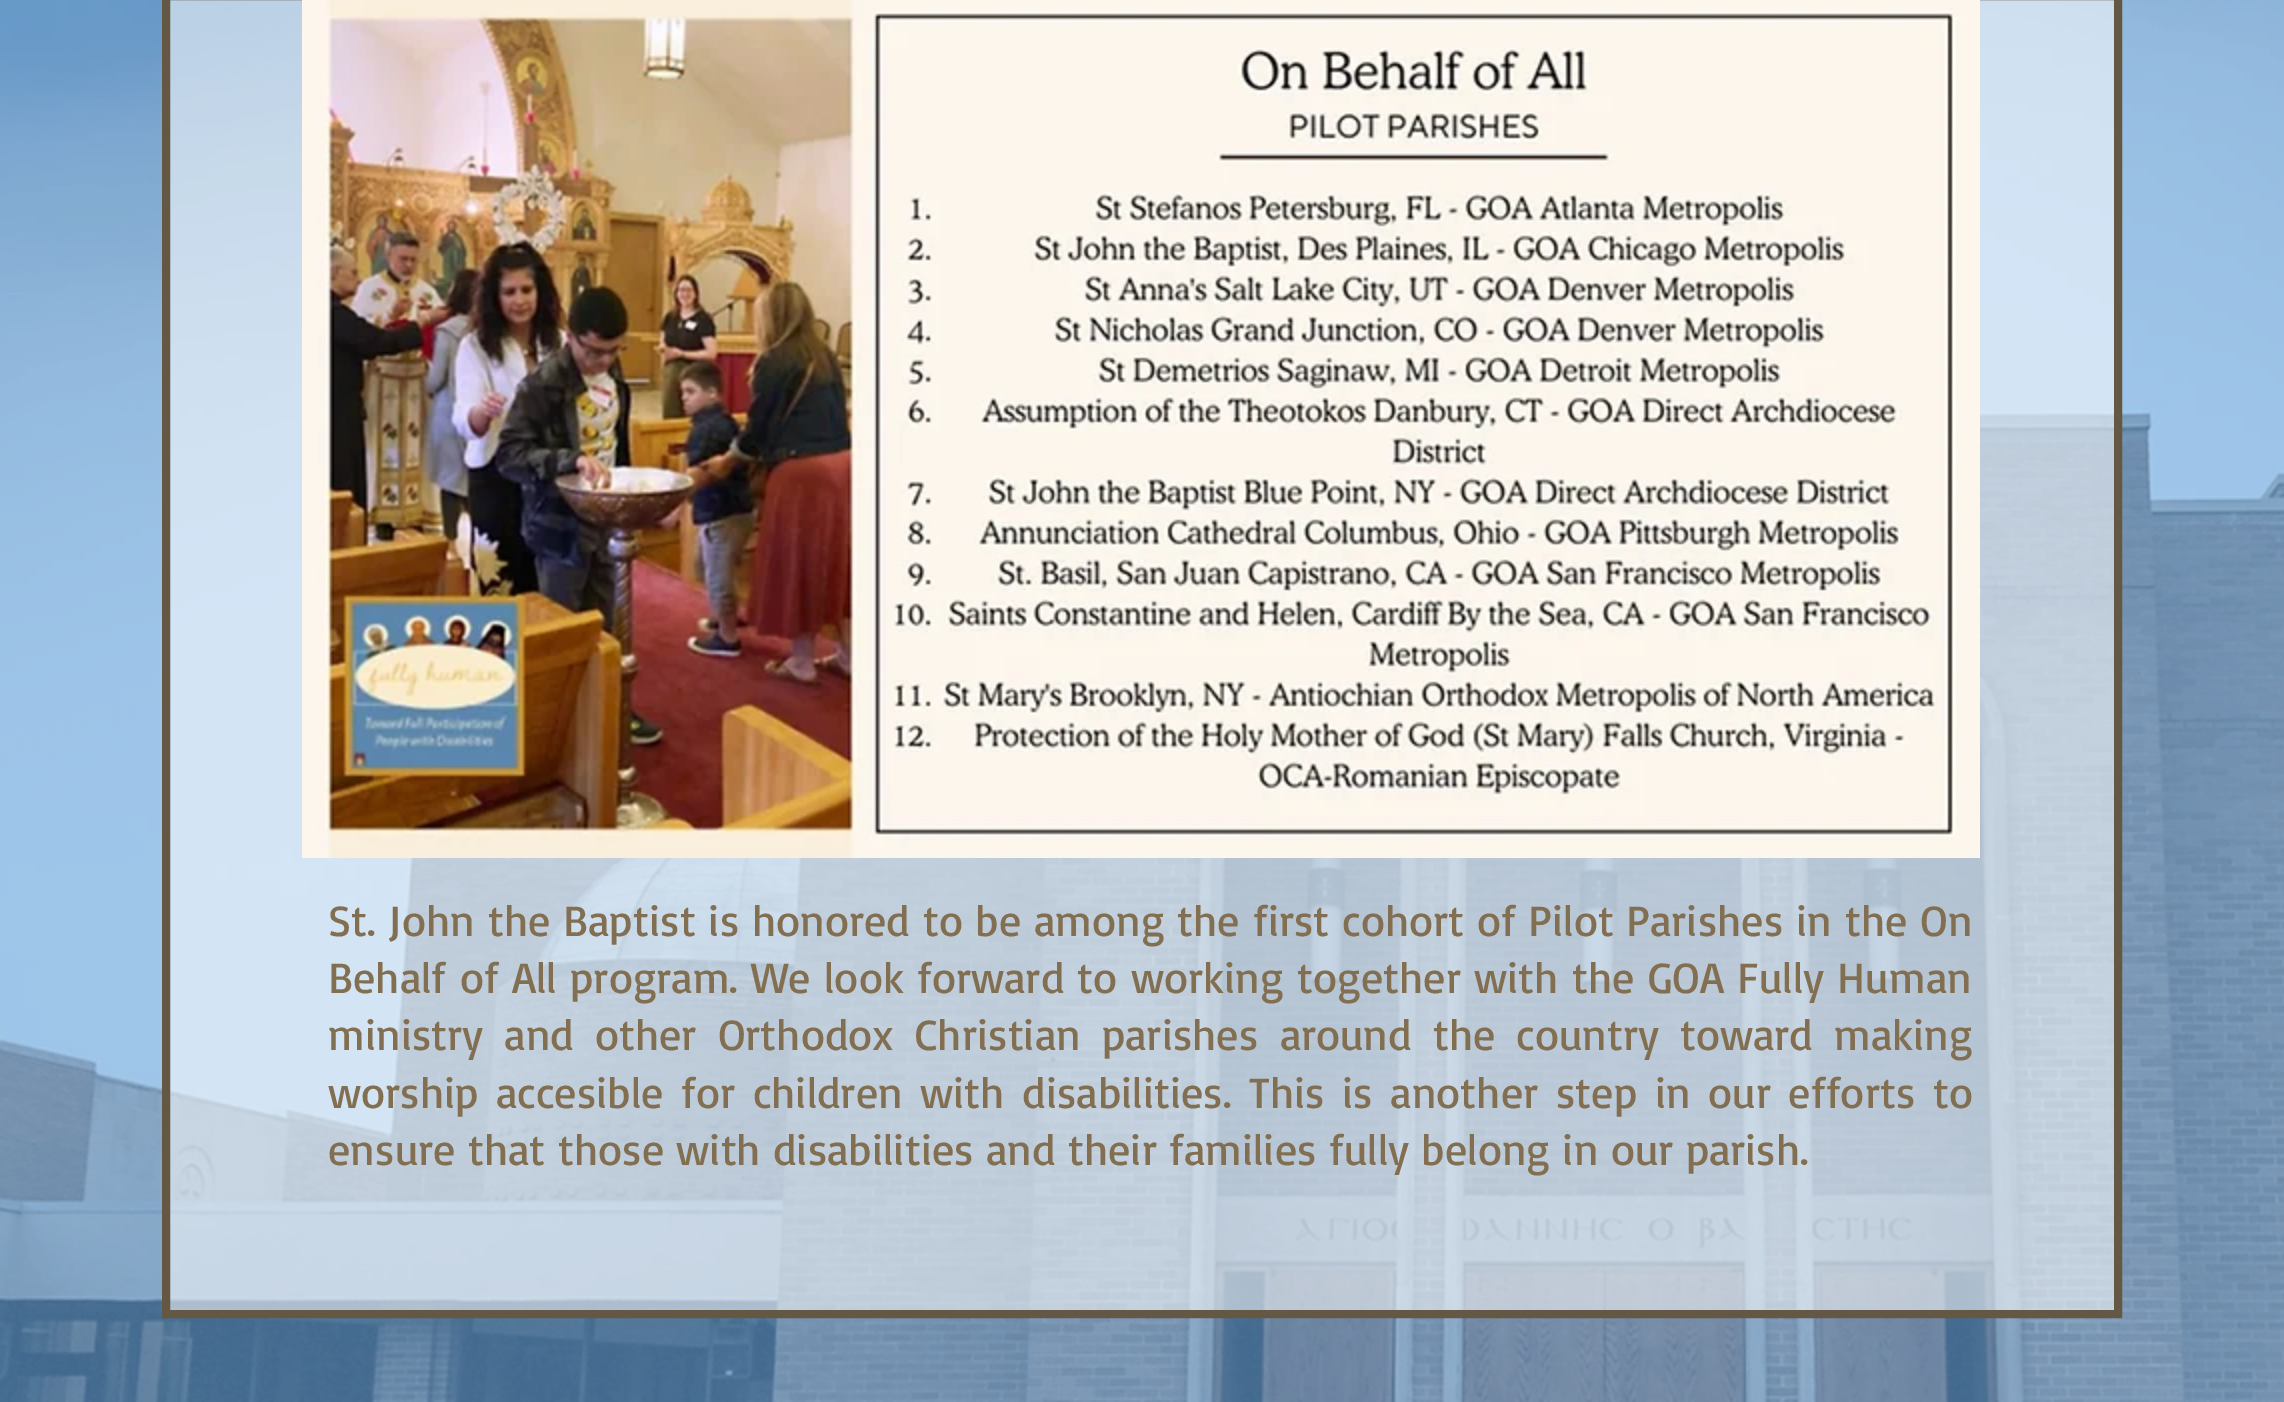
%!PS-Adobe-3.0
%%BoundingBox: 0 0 2284 1402
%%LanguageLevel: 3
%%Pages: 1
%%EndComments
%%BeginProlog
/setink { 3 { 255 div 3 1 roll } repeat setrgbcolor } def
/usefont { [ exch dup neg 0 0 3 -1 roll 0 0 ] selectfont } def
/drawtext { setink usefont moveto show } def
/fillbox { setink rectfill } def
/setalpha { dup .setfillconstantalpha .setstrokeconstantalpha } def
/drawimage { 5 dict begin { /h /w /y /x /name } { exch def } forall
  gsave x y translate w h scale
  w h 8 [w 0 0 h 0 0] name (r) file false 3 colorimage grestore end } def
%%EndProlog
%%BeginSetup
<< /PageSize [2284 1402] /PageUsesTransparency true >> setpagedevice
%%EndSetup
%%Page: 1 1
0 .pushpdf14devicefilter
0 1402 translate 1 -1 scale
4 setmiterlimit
0 0 2284 1402 103 170 230 fillbox
(assets/img1.rgb) 0 0 2284 1402 drawimage
0.55 setalpha
255 255 255 setink
166 -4 moveto 2118 -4 lineto 2118 1314 lineto 166 1314 lineto closepath fill
1 setalpha
100 88 68 setink
8 setlinewidth
166 -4 moveto 2118 -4 lineto 2118 1314 lineto 166 1314 lineto closepath stroke
(assets/img2.rgb) 302 0 1678 858 drawimage
/Basic-Regular 44 usefont
130 111 82 setink
328 936 moveto 0.5 0 32 (St. John the Baptist is honored to be among the first cohort of Pilot Parishes in the On) widthshow
328 993 moveto 1 0 32 (Behalf of All program. We look forward to working together with the GOA Fully Human) widthshow
328 1050 moveto 8.75 0 32 (ministry and other Orthodox Christian parishes around the country toward making) widthshow
328 1108 moveto 5.25 0 32 (worship accesible for children with disabilities. This is another step in our efforts to) widthshow
(ensure that those with disabilities and their families fully belong in our parish.) 328 1165 /Basic-Regular 44 130 111 82 drawtext
.poppdf14devicefilter showpage
%%EOF
